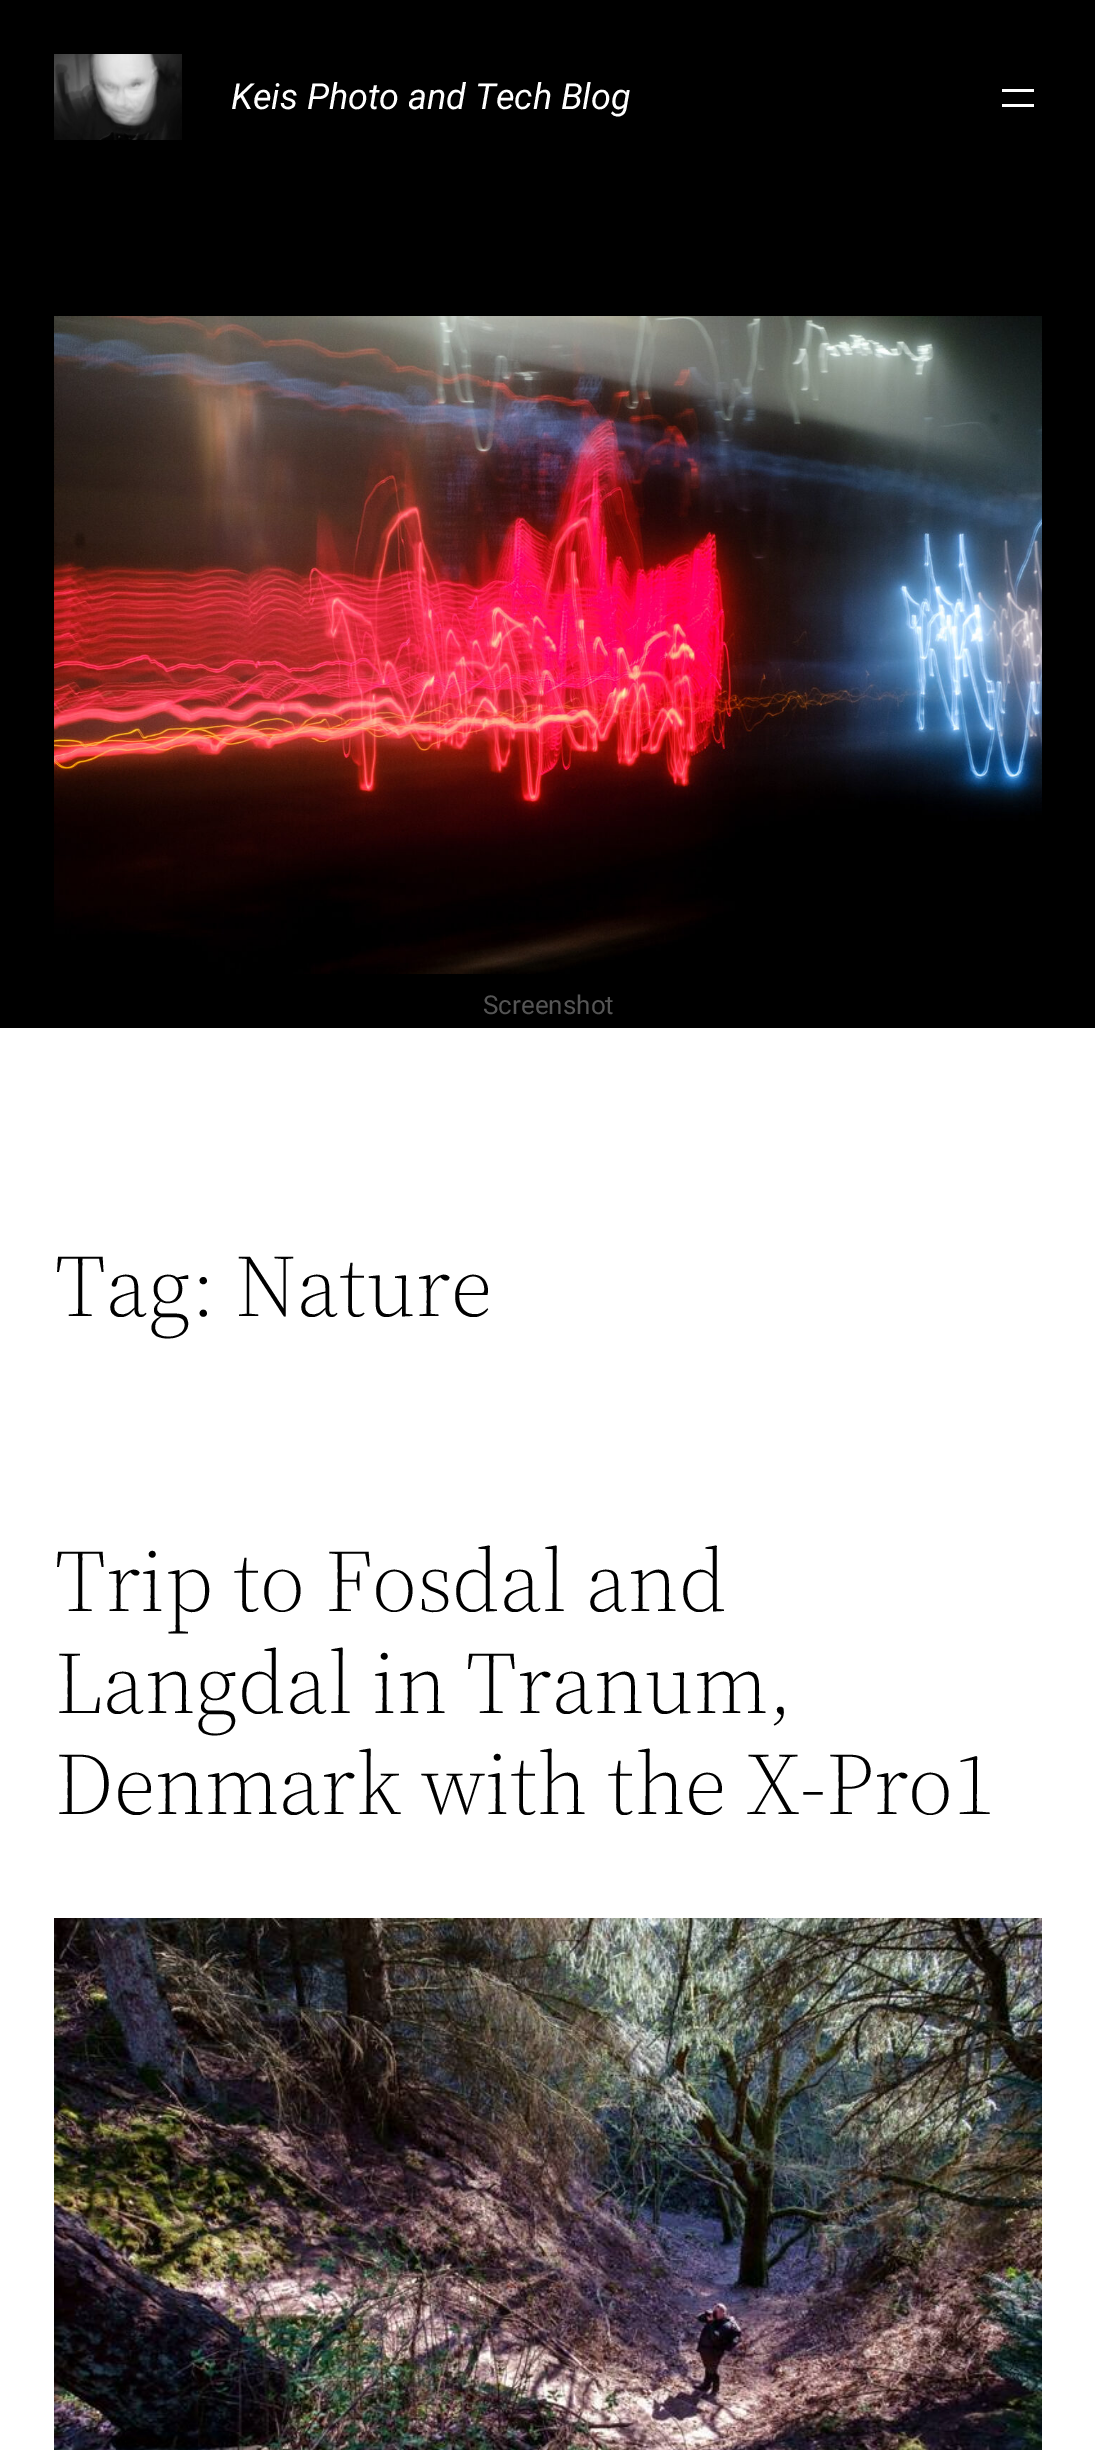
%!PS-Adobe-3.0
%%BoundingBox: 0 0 1095 2450
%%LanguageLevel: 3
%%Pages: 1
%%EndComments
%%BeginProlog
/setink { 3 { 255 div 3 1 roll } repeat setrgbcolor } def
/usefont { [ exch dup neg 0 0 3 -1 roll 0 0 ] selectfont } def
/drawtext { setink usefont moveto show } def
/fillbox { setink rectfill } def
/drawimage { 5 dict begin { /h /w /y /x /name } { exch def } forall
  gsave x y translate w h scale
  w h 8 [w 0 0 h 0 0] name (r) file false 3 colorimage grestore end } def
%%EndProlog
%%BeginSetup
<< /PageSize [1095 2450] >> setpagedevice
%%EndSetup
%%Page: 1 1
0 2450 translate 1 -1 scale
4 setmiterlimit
0 0 1095 2450 255 255 255 fillbox
0 0 1095 1028 0 0 0 fillbox
(assets/img1.rgb) 54 54 128 86 drawimage
(Keis Photo and Tech Blog) 231 109 /Roboto-Italic 36 255 255 255 drawtext
1002 89 32 3 255 255 255 fillbox
1002 104 32 3 255 255 255 fillbox
(assets/img2.rgb) 54 316 988 658 drawimage
(Screenshot) 483 1014 /Roboto-Regular 26 85 85 85 drawtext
(Tag: Nature) 55 1316 /SourceSerif4-Light 88 0 0 0 drawtext
(Trip to Fosdal and) 55 1611 /SourceSerif4-Light 88 0 0 0 drawtext
(Langdal in Tranum,) 55 1713 /SourceSerif4-Light 88 0 0 0 drawtext
(Denmark with the X-Pro1) 55 1814 /SourceSerif4-Light 88 0 0 0 drawtext
(assets/img3.rgb) 54 1918 988 532 drawimage
showpage
%%EOF
